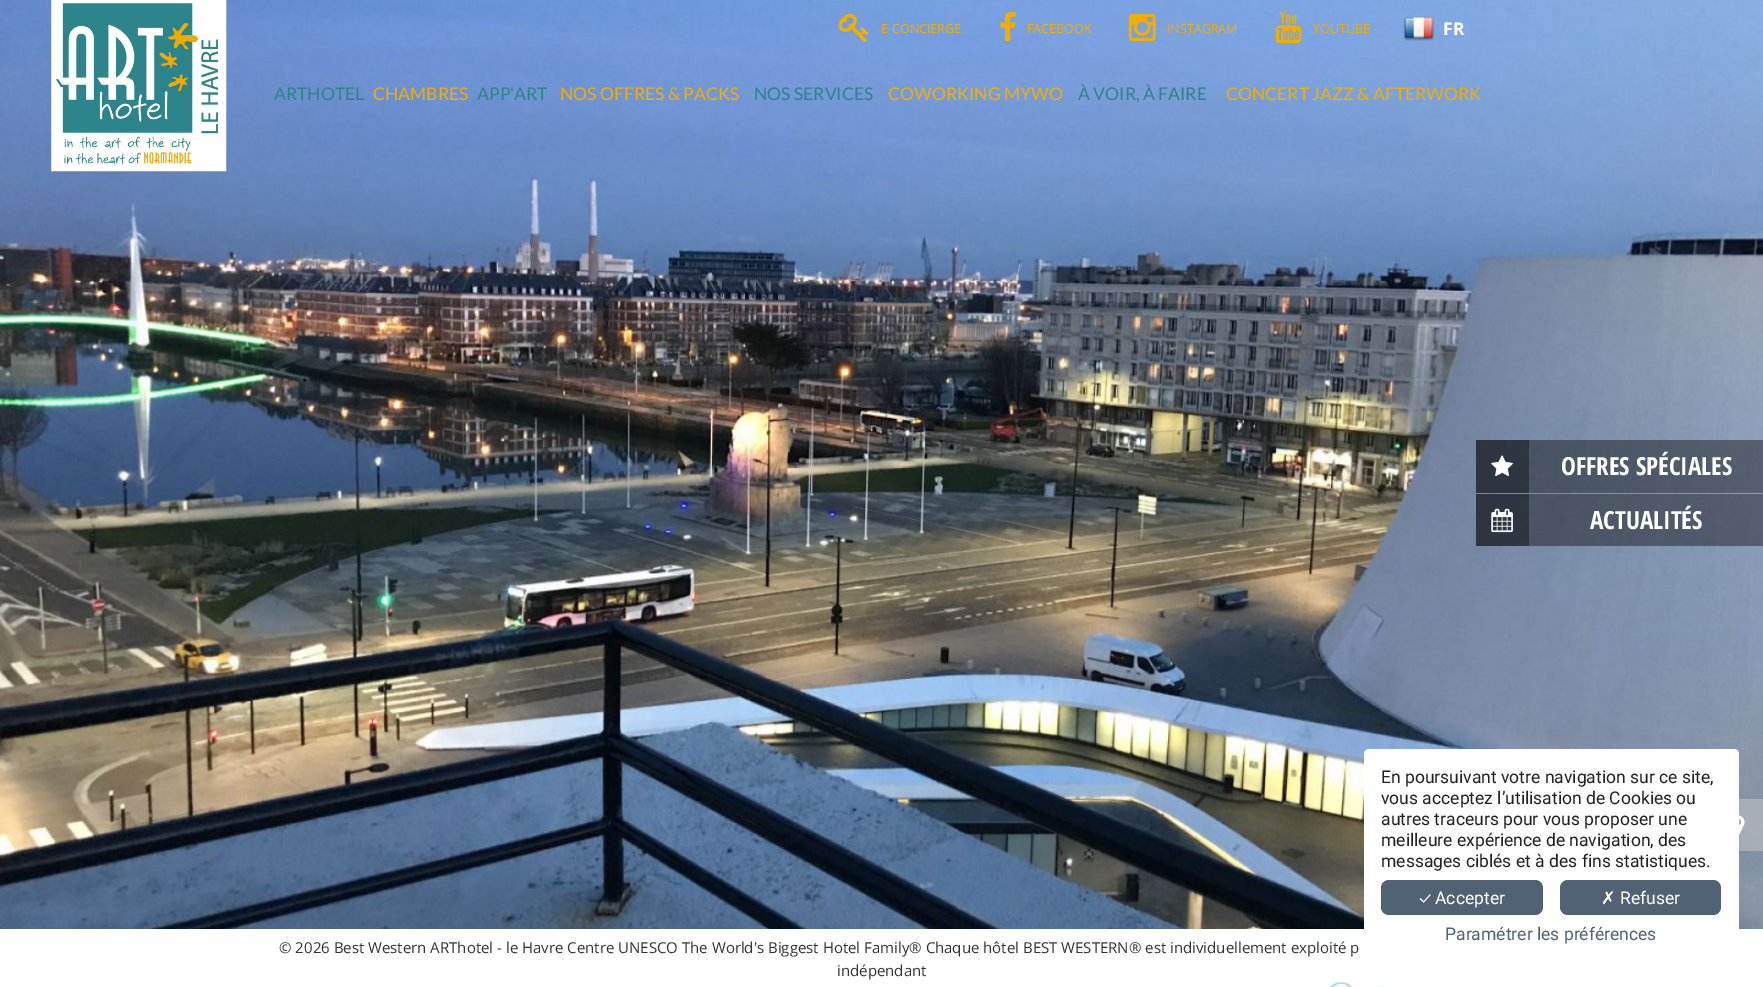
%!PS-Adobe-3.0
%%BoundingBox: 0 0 1763 987
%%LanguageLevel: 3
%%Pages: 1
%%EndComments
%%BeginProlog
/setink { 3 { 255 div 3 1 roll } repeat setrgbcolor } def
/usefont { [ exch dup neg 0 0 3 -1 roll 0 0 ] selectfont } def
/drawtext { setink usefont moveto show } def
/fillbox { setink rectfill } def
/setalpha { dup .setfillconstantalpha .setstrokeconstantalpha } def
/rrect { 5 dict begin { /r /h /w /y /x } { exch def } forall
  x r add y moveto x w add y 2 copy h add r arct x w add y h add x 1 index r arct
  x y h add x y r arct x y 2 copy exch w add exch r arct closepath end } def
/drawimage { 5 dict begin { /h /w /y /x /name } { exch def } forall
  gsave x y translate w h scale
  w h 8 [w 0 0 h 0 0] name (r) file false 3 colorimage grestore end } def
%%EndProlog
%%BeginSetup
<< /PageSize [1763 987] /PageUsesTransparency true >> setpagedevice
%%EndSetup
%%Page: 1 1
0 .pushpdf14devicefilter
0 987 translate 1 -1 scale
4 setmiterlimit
0 0 1763 987 255 255 255 fillbox
(assets/img1.rgb) 0 0 1763 929 drawimage
(assets/img2.rgb) 51 0 176 172 drawimage
(assets/img3.rgb) 838 14 31 28 drawimage
(E-CONCIERGE) 881 33 /OpenSans-Regular 12.5 240 174 0 drawtext
(assets/img4.rgb) 1000 11 16 30 drawimage
(FACEBOOK) 1027 33 /OpenSans-Regular 12.5 240 174 0 drawtext
(assets/img5.rgb) 1128 14 28 27 drawimage
(INSTAGRAM) 1167 33 /OpenSans-Regular 12.5 240 174 0 drawtext
(assets/img6.rgb) 1275 11 27 33 drawimage
(YOUTUBE) 1313 33 /OpenSans-Regular 12.5 240 174 0 drawtext
(assets/img7.rgb) 1403 16 31 25 drawimage
(FR) 1443 35 /OpenSans-Bold 17.5 255 255 255 drawtext
(ARTHOTEL) 274 100 /Lato-Regular 17.5 43 133 139 drawtext
(CHAMBRES) 373 100 /Lato-Regular 17.5 240 174 0 drawtext
(APP'ART) 477 100 /Lato-Regular 17.5 43 133 139 drawtext
(NOS OFFRES & PACKS) 560 100 /Lato-Regular 17.5 240 174 0 drawtext
(NOS SERVICES) 754 100 /Lato-Regular 17.5 43 133 139 drawtext
(COWORKING MYWO) 888 100 /Lato-Regular 17.5 240 174 0 drawtext
(À VOIR, À FAIRE) 1078 100 /Lato-Regular 17.5 43 133 139 drawtext
(CONCERT JAZZ & AFTERWORK) 1226 100 /Lato-Regular 17.5 240 174 0 drawtext
0.4 setalpha
1476 440 287 53 0 0 0 fillbox
0.35 setalpha
1476 440 53 53 0 0 0 fillbox
1 setalpha
(assets/img8.rgb) 1491 455 22 21 drawimage
(OFFRES SPÉCIALES) 1561 475 /OpenSansCondensed-Bold 25 255 255 255 drawtext
0.4 setalpha
1476 494 287 52 0 0 0 fillbox
0.35 setalpha
1476 494 53 52 0 0 0 fillbox
1 setalpha
(assets/img9.rgb) 1491 508 22 25 drawimage
(ACTUALITÉS) 1590 529 /OpenSansCondensed-Bold 25 255 255 255 drawtext
0.5 setalpha
1739 799 24 52 200 200 200 fillbox
1 setalpha
(assets/img10.rgb) 1739 815 6 20 drawimage
(© 2026 Best Western ARThotel - le Havre Centre UNESCO The World's Biggest Hotel Family® Chaque hôtel BEST WESTERN® est individuellement exploité p) 279 953 /OpenSans-Regular 15 51 51 51 drawtext
(indépendant) 837 976 /OpenSans-Regular 15 51 51 51 drawtext
(assets/img11.rgb) 1330 982 53 5 drawimage
255 255 255 setink
1364 749 375 214 5 rrect fill
(En poursuivant votre navigation sur ce site,) 1381 783 /Roboto-Regular 17.5 34 34 34 drawtext
(vous acceptez l’utilisation de Cookies ou) 1381 804 /Roboto-Regular 17.5 34 34 34 drawtext
(autres traceurs pour vous proposer une) 1381 825 /Roboto-Regular 17.5 34 34 34 drawtext
(meilleure expérience de navigation, des) 1381 846 /Roboto-Regular 17.5 34 34 34 drawtext
(messages ciblés et à des fins statistiques.) 1381 867 /Roboto-Regular 17.5 34 34 34 drawtext
81 98 117 setink
1381 880 162 35 8 rrect fill
(✓) 1419 904 /Ubuntu-Regular 17.5 255 255 255 drawtext
(Accepter) 1435 904 /Roboto-Regular 17.5 255 255 255 drawtext
81 98 117 setink
1560 880 161 35 8 rrect fill
(✗) 1601 904 /DejaVuSans-Regular 17.5 255 255 255 drawtext
(Refuser) 1620 904 /Roboto-Regular 17.5 255 255 255 drawtext
(Paramétrer les préférences) 1445 940 /Roboto-Regular 17.5 81 98 117 drawtext
.poppdf14devicefilter showpage
%%EOF
